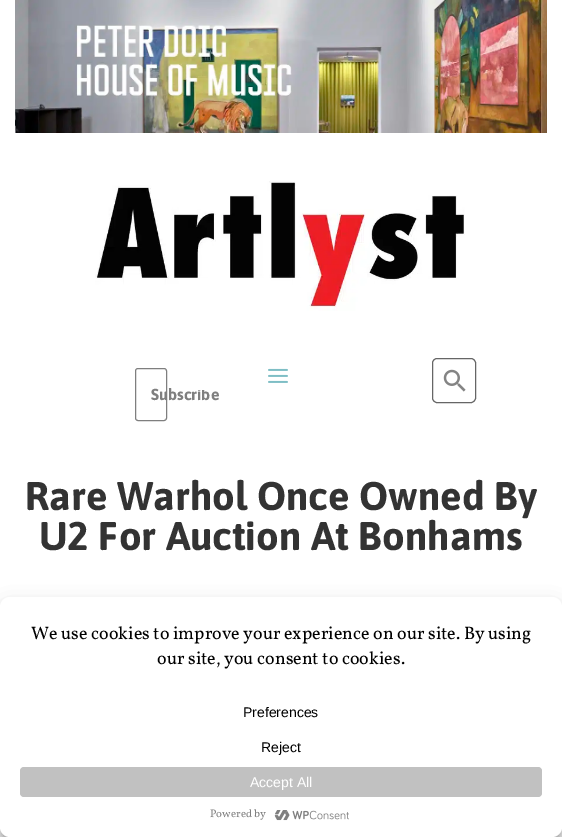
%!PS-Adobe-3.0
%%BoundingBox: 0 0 562 837
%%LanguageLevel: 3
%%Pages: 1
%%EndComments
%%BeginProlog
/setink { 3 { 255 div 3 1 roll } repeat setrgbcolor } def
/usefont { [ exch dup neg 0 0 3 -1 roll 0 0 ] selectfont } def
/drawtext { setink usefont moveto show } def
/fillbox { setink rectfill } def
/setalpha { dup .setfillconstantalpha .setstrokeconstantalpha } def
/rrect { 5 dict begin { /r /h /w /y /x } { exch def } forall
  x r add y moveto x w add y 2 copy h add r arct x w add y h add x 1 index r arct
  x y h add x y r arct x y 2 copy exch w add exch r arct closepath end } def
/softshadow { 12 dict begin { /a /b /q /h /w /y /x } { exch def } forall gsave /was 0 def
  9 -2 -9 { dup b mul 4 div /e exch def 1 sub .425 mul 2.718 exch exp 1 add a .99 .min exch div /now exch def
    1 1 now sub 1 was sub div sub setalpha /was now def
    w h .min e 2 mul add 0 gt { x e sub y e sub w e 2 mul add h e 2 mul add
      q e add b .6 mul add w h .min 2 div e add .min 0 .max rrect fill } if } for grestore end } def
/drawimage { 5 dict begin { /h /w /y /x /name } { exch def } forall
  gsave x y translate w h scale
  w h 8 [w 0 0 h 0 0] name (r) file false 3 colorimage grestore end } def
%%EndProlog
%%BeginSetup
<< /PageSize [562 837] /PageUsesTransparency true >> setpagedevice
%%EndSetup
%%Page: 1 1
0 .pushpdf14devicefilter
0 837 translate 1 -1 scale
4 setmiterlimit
0 0 562 837 255 255 255 fillbox
(assets/img1.rgb) 15 0 532 133 drawimage
(assets/img2.rgb) 95 181 370 130 drawimage
127 127 127 setink
135.5 368.5 31 52 2.5 rrect stroke
(Subscribe) 151 400 /Asap-Bold 16 127 127 127 drawtext
198 387 7 3 255 255 255 fillbox
(assets/img3.rgb) 268 368 20 15 drawimage
102 102 102 setink
432.5 358.5 43 44 4.5 rrect stroke
(assets/img4.rgb) 443 369 23 23 drawimage
(Rare Warhol Once Owned By) 25 510 /Asap-Bold 40 51 51 51 drawtext
(U2 For Auction At Bonhams) 39 550 /Asap-Bold 40 51 51 51 drawtext
0 0 0 setink
0 603 562 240 10 3 0.23 softshadow
0 607 562 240 10 10 0.19 softshadow
255 255 255 setink
0 597 562 240 10 rrect fill
(We use cookies to improve your experience on our site. By using) 31 639 /Vollkorn-Regular 18 0 0 0 drawtext
(our site, you consent to cookies.) 157 664 /Vollkorn-Regular 18 0 0 0 drawtext
(Preferences) 243 717 /LiberationSans-Regular 14 0 0 0 drawtext
(Reject) 261 752 /LiberationSans-Regular 14 0 0 0 drawtext
193 193 193 setink
20 767 522 30 4 rrect fill
(Accept All) 250 787 /LiberationSans-Regular 14 255 255 255 drawtext
(Powered by) 210 817 /Vollkorn-Regular 11 127 127 127 drawtext
(assets/img5.rgb) 274 810 75 11 drawimage
.poppdf14devicefilter showpage
%%EOF
